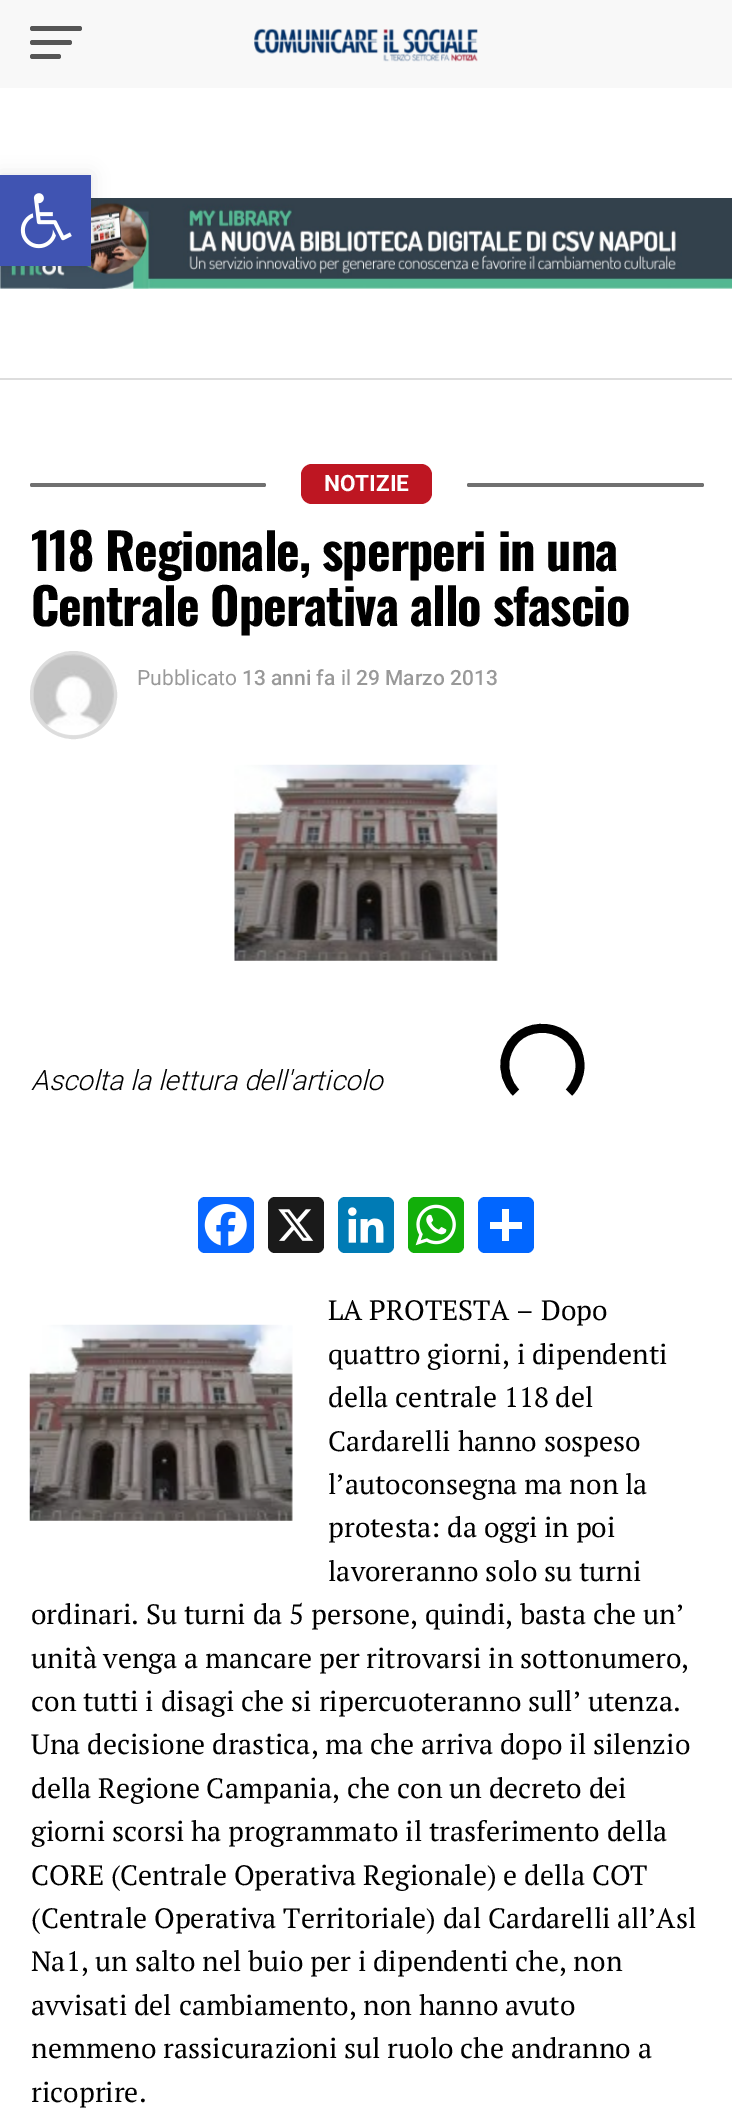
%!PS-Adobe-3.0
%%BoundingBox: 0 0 732 2116
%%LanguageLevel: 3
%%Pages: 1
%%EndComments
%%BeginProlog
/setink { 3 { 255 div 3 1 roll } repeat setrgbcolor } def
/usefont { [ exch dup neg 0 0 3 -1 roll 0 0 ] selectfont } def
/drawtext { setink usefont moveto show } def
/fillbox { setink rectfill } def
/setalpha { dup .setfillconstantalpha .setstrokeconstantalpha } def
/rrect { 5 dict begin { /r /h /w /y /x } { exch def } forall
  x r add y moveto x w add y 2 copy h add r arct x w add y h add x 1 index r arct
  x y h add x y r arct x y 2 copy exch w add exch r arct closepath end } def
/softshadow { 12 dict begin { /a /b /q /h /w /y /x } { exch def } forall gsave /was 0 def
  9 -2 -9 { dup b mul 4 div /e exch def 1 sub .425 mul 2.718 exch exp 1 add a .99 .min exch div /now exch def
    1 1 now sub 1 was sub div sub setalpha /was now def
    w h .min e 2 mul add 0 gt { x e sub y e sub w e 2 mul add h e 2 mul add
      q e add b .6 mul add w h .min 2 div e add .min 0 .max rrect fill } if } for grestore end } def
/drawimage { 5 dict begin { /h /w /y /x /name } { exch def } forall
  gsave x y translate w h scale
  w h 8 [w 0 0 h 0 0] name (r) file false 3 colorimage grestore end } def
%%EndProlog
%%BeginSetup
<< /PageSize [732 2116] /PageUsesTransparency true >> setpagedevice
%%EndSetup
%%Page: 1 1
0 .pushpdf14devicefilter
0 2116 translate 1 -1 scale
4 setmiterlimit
0 0 732 2116 255 255 255 fillbox
(assets/img3.rgb) 0 198 732 91 drawimage
0 0 0 setink
0 175 91 91 0 9 0.1 softshadow
0 175 91 91 64 84 178 fillbox
(assets/img1.rgb) 20 193 52 56 drawimage
0 0 732 88 248 248 248 fillbox
85 85 85 setink
30 26 52 5 2.5 rrect fill
30 40 42 5 2.5 rrect fill
30 54 31 5 2.5 rrect fill
(assets/img2.rgb) 254 28 224 34 drawimage
0 378 732 2 221 221 221 fillbox
112 112 112 setink
30 483 236 4 2 rrect fill
190 22 34 setink
301 464 131 40 11 rrect fill
(NOTIZIE) 324 491 /Roboto-Bold 22.5 255 255 255 drawtext
112 112 112 setink
467 483 237 4 2 rrect fill
/Oswald-Bold 50.4 usefont
0 0 0 setink
31 571 moveto -1 0 (118 Regionale, sperperi in una) ashow
31 626 moveto -1 0 (Centrale Operativa allo sfascio) ashow
221 221 221 setink
4 setlinewidth
32 653 83 84 41.5 rrect stroke
(assets/img4.rgb) 33 654 81 82 drawimage
(Pubblicato) 137 685 /Roboto-Regular 21 153 153 153 drawtext
(13 anni fa) 242 685 /Roboto-Medium 21 153 153 153 drawtext
(il) 341 685 /Roboto-Regular 21 153 153 153 drawtext
(29 Marzo 2013) 356 685 /Roboto-Medium 21 153 153 153 drawtext
(assets/img5.rgb) 234 764 264 197 drawimage
(Ascolta la lettura dell'articolo) 31 1090 /Roboto-LightItalic 28 0 0 0 drawtext
8.8 setlinewidth
516 1092.5 moveto 507 1083.5 503 1070.5 505.5 1058.5 curveto 514.5 1014 580 1020.5 580 1066 curveto 580 1075.5 576 1085.5 569 1092.5 curveto stroke
8 102 255 setink
198 1197 56 56 7 rrect fill
(assets/img6.rgb) 204 1204 43 42 drawimage
26 26 26 setink
268 1197 56 56 7 rrect fill
(assets/img7.rgb) 278 1209 36 32 drawimage
0 123 181 setink
338 1197 56 56 7 rrect fill
(assets/img8.rgb) 348 1207 36 36 drawimage
18 175 10 setink
408 1197 56 56 7 rrect fill
(assets/img9.rgb) 415 1204 41 42 drawimage
1 102 255 setink
478 1197 56 56 7 rrect fill
502 1209 7 32 255 255 255 fillbox
490 1222 32 7 255 255 255 fillbox
(LA PROTESTA – Dopo) 328 1320 /PTSerif-Regular 28 0 0 0 drawtext
(assets/img10.rgb) 29 1324 264 197 drawimage
(quattro giorni, i dipendenti) 328 1364 /PTSerif-Regular 28 0 0 0 drawtext
(della centrale 118 del) 328 1407 /PTSerif-Regular 28 0 0 0 drawtext
(Cardarelli hanno sospeso) 328 1451 /PTSerif-Regular 28 0 0 0 drawtext
(l’autoconsegna ma non la) 328 1494 /PTSerif-Regular 28 0 0 0 drawtext
(protesta: da oggi in poi) 328 1537 /PTSerif-Regular 28 0 0 0 drawtext
(lavoreranno solo su turni) 328 1581 /PTSerif-Regular 28 0 0 0 drawtext
(ordinari. Su turni da 5 persone, quindi, basta che un’) 31 1624 /PTSerif-Regular 28 0 0 0 drawtext
(unità venga a mancare per ritrovarsi in sottonumero,) 31 1668 /PTSerif-Regular 28 0 0 0 drawtext
(con tutti i disagi che si ripercuoteranno sull’ utenza.) 31 1711 /PTSerif-Regular 28 0 0 0 drawtext
(Una decisione drastica, ma che arriva dopo il silenzio) 31 1754 /PTSerif-Regular 28 0 0 0 drawtext
(della Regione Campania, che con un decreto dei) 31 1798 /PTSerif-Regular 28 0 0 0 drawtext
(giorni scorsi ha programmato il trasferimento della) 31 1841 /PTSerif-Regular 28 0 0 0 drawtext
(CORE \(Centrale Operativa Regionale\) e della COT) 31 1885 /PTSerif-Regular 28 0 0 0 drawtext
(\(Centrale Operativa Territoriale\) dal Cardarelli all’Asl) 31 1928 /PTSerif-Regular 28 0 0 0 drawtext
(Na1, un salto nel buio per i dipendenti che, non) 31 1971 /PTSerif-Regular 28 0 0 0 drawtext
(avvisati del cambiamento, non hanno avuto) 31 2015 /PTSerif-Regular 28 0 0 0 drawtext
(nemmeno rassicurazioni sul ruolo che andranno a) 31 2058 /PTSerif-Regular 28 0 0 0 drawtext
(ricoprire.) 31 2102 /PTSerif-Regular 28 0 0 0 drawtext
.poppdf14devicefilter showpage
%%EOF
